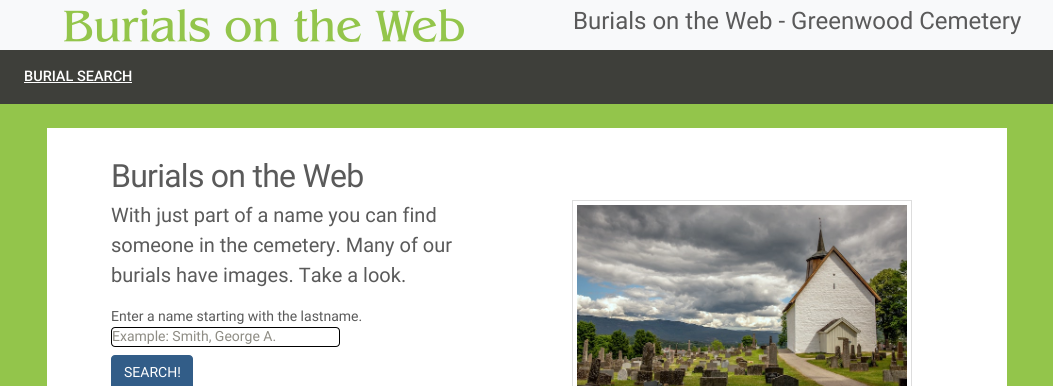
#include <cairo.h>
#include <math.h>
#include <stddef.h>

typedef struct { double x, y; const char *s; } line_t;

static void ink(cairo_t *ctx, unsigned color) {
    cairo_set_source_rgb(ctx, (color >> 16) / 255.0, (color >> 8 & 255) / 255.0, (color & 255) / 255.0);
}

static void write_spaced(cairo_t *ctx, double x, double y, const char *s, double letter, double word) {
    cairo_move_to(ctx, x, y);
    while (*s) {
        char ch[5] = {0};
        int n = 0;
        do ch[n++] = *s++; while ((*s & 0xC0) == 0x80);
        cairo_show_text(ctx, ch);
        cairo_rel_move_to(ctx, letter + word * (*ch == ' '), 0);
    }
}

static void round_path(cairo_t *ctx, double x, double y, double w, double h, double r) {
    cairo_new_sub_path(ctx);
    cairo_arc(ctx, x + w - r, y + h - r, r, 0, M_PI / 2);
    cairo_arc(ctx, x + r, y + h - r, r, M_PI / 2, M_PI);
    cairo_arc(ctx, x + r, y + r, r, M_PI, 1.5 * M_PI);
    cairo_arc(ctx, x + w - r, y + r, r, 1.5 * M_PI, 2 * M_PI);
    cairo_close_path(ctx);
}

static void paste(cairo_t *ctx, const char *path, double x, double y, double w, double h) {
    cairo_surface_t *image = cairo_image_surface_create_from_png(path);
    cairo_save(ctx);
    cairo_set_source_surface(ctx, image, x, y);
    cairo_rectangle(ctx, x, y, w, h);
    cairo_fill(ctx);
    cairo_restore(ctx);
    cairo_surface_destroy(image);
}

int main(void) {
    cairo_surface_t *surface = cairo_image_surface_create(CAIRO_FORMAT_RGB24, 1053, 386);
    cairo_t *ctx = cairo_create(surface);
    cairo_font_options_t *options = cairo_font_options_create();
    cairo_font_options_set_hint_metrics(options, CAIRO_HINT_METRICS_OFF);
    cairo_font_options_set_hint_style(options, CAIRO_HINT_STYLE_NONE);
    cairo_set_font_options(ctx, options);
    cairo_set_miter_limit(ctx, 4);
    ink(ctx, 0x93C54B);
    cairo_paint(ctx);
    ink(ctx, 0xF8F9FA);
    cairo_rectangle(ctx, 0, 0, 1053, 50);
    cairo_fill(ctx);
    paste(ctx, "media/1.png", 64, 9, 400, 33);
    cairo_select_font_face(ctx, "Roboto", CAIRO_FONT_SLANT_NORMAL, CAIRO_FONT_WEIGHT_NORMAL);
    cairo_set_font_size(ctx, 24);
    ink(ctx, 0x5A5A5A);
    cairo_move_to(ctx, 573, 29);
    cairo_show_text(ctx, "Burials on the Web - Greenwood Cemetery");
    ink(ctx, 0x3E3F3A);
    cairo_rectangle(ctx, 0, 50, 1053, 54);
    cairo_fill(ctx);
    cairo_select_font_face(ctx, "Roboto Medium", CAIRO_FONT_SLANT_NORMAL, CAIRO_FONT_WEIGHT_NORMAL);
    cairo_set_font_size(ctx, 14.5);
    ink(ctx, 0xFFFFFF);
    cairo_move_to(ctx, 24, 81);
    cairo_show_text(ctx, "BURIAL SEARCH");
    cairo_rectangle(ctx, 24, 82, 108, 1);
    cairo_fill(ctx);
    cairo_rectangle(ctx, 47, 128, 960, 258);
    cairo_fill(ctx);
    cairo_select_font_face(ctx, "Roboto", CAIRO_FONT_SLANT_NORMAL, CAIRO_FONT_WEIGHT_NORMAL);
    cairo_set_font_size(ctx, 32);
    ink(ctx, 0x5A5A5A);
    write_spaced(ctx, 111, 187, "Burials on the Web", -0.75, 0);
    cairo_set_font_size(ctx, 20);
    {
        static const line_t items[] = {
            {111, 222, "With just part of a name you can find"},
            {111, 252, "someone in the cemetery. Many of our"},
            {111, 282, "burials have images. Take a look."},
        };
        for (size_t i = 0; i < sizeof items / sizeof *items; i++) {
            cairo_move_to(ctx, items[i].x, items[i].y);
            cairo_show_text(ctx, items[i].s);
        }
    }
    cairo_set_font_size(ctx, 14);
    cairo_move_to(ctx, 111, 321);
    cairo_show_text(ctx, "Enter a name starting with the lastname.");
    round_path(ctx, 111.5, 327.5, 228, 19, 3.5);
    ink(ctx, 0x000000);
    cairo_set_line_width(ctx, 1);
    cairo_stroke(ctx);
    ink(ctx, 0x8E8C84);
    cairo_move_to(ctx, 112, 341);
    cairo_show_text(ctx, "Example: Smith, George A.");
    ink(ctx, 0x325D88);
    round_path(ctx, 111.5, 355.5, 81, 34, 3.5);
    cairo_fill_preserve(ctx);
    cairo_stroke(ctx);
    ink(ctx, 0xFFFFFF);
    cairo_move_to(ctx, 124, 377);
    cairo_show_text(ctx, "SEARCH!");
    cairo_rectangle(ctx, 572.5, 200.5, 339, 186);
    ink(ctx, 0xDDDDDD);
    cairo_stroke(ctx);
    paste(ctx, "media/2.png", 577, 205, 330, 181);
    cairo_surface_write_to_png(surface, "image.png");
    cairo_font_options_destroy(options);
    cairo_destroy(ctx);
    cairo_surface_destroy(surface);
    return 0;
}
